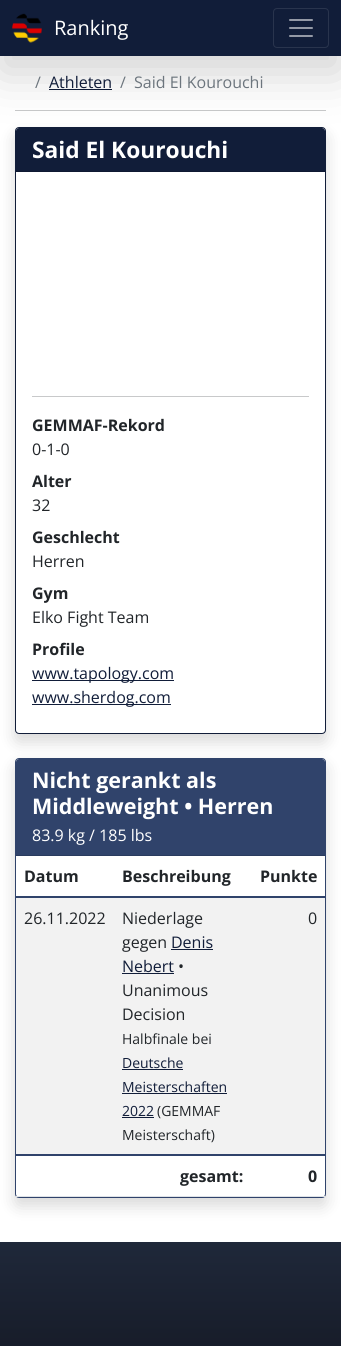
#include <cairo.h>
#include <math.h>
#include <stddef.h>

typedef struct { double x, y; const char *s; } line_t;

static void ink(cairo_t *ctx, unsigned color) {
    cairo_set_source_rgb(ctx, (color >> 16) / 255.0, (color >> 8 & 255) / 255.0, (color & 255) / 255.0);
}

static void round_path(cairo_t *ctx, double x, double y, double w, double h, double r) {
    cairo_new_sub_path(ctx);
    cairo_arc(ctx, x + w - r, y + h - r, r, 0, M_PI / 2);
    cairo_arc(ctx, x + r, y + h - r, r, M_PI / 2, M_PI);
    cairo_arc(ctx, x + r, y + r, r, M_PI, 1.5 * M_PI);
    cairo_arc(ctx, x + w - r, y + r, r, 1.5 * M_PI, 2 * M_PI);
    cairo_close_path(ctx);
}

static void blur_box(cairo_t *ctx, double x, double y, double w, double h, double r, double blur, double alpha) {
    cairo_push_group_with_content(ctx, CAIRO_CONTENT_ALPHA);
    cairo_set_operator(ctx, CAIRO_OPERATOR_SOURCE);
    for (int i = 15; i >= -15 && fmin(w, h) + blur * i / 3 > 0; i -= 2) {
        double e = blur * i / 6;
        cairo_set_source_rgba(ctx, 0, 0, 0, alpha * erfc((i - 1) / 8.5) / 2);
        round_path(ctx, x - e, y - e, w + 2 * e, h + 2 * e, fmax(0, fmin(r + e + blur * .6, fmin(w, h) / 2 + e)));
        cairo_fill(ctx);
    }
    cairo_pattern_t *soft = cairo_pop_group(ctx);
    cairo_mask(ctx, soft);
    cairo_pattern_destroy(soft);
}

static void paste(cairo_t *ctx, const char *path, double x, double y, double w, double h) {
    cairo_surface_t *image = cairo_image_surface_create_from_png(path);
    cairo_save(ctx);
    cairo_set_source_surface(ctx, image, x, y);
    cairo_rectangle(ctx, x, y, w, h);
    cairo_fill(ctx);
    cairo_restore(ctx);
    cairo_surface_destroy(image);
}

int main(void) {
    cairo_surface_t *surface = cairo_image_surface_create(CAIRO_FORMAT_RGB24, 341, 1346);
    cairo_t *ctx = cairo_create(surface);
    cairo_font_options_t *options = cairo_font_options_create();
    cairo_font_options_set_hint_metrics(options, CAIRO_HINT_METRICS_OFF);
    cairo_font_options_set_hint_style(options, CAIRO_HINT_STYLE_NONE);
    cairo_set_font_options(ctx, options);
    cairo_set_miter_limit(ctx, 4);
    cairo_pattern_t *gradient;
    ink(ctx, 0xFFFFFF);
    cairo_paint(ctx);
    ink(ctx, 0x111D39);
    cairo_rectangle(ctx, 49, 89, 63, 1);
    cairo_fill(ctx);
    ink(ctx, 0xC8C9CA);
    cairo_rectangle(ctx, 15, 110, 311, 1);
    cairo_fill(ctx);
    ink(ctx, 0x000000);
    blur_box(ctx, 15, 135, 311, 607, 4, 8, 0.15);
    ink(ctx, 0xFFFFFF);
    round_path(ctx, 15.5, 127.5, 310, 606, 3.5);
    cairo_fill_preserve(ctx);
    ink(ctx, 0x111D39);
    cairo_set_line_width(ctx, 1);
    cairo_stroke(ctx);
    cairo_new_path(ctx);
    cairo_move_to(ctx, 19, 128);
    cairo_line_to(ctx, 322, 128);
    cairo_curve_to(ctx, 323.5, 128, 325, 129.5, 325, 131);
    cairo_line_to(ctx, 325, 172);
    cairo_line_to(ctx, 16, 172);
    cairo_line_to(ctx, 16, 131);
    cairo_curve_to(ctx, 16, 129.5, 17.5, 128, 19, 128);
    cairo_close_path(ctx);
    cairo_fill(ctx);
    ink(ctx, 0x000000);
    blur_box(ctx, 0, 16, 341, 56, 0, 24, 0.18);
    ink(ctx, 0x111D39);
    cairo_rectangle(ctx, 0, 0, 341, 56);
    cairo_fill(ctx);
    paste(ctx, "media/1.png", 12, 13, 30, 30);
    cairo_select_font_face(ctx, "Open Sans", CAIRO_FONT_SLANT_NORMAL, CAIRO_FONT_WEIGHT_NORMAL);
    cairo_set_font_size(ctx, 20);
    ink(ctx, 0xFFFFFF);
    cairo_move_to(ctx, 54, 35);
    cairo_show_text(ctx, "Ranking");
    round_path(ctx, 273.5, 8.5, 55, 39, 3.5);
    ink(ctx, 0x29344D);
    cairo_stroke(ctx);
    paste(ctx, "media/2.png", 289, 19, 24, 18);
    cairo_set_font_size(ctx, 16);
    ink(ctx, 0x6C757D);
    cairo_move_to(ctx, 35, 88);
    cairo_show_text(ctx, "/");
    ink(ctx, 0x111D39);
    cairo_move_to(ctx, 49, 88);
    cairo_show_text(ctx, "Athleten");
    ink(ctx, 0x6C757D);
    cairo_move_to(ctx, 120, 88);
    cairo_show_text(ctx, "/");
    cairo_move_to(ctx, 134, 88);
    cairo_show_text(ctx, "Said El Kourouchi");
    ink(ctx, 0x0F1932);
    cairo_rectangle(ctx, 16, 171, 309, 1);
    cairo_fill(ctx);
    cairo_select_font_face(ctx, "Open Sans", CAIRO_FONT_SLANT_NORMAL, CAIRO_FONT_WEIGHT_BOLD);
    cairo_set_font_size(ctx, 22.75);
    ink(ctx, 0xFFFFFF);
    cairo_move_to(ctx, 32, 158);
    cairo_show_text(ctx, "Said El Kourouchi");
    ink(ctx, 0xC8C9CA);
    cairo_rectangle(ctx, 32, 396, 277, 1);
    cairo_fill(ctx);
    cairo_set_font_size(ctx, 16);
    ink(ctx, 0x212529);
    cairo_move_to(ctx, 32, 431);
    cairo_show_text(ctx, "GEMMAF-Rekord");
    cairo_select_font_face(ctx, "Open Sans", CAIRO_FONT_SLANT_NORMAL, CAIRO_FONT_WEIGHT_NORMAL);
    cairo_move_to(ctx, 32, 455);
    cairo_show_text(ctx, "0-1-0");
    cairo_select_font_face(ctx, "Open Sans", CAIRO_FONT_SLANT_NORMAL, CAIRO_FONT_WEIGHT_BOLD);
    cairo_move_to(ctx, 32, 487);
    cairo_show_text(ctx, "Alter");
    cairo_select_font_face(ctx, "Open Sans", CAIRO_FONT_SLANT_NORMAL, CAIRO_FONT_WEIGHT_NORMAL);
    cairo_move_to(ctx, 32, 511);
    cairo_show_text(ctx, "32");
    cairo_select_font_face(ctx, "Open Sans", CAIRO_FONT_SLANT_NORMAL, CAIRO_FONT_WEIGHT_BOLD);
    cairo_move_to(ctx, 32, 543);
    cairo_show_text(ctx, "Geschlecht");
    cairo_select_font_face(ctx, "Open Sans", CAIRO_FONT_SLANT_NORMAL, CAIRO_FONT_WEIGHT_NORMAL);
    cairo_move_to(ctx, 32, 567);
    cairo_show_text(ctx, "Herren");
    cairo_select_font_face(ctx, "Open Sans", CAIRO_FONT_SLANT_NORMAL, CAIRO_FONT_WEIGHT_BOLD);
    cairo_move_to(ctx, 32, 599);
    cairo_show_text(ctx, "Gym");
    cairo_select_font_face(ctx, "Open Sans", CAIRO_FONT_SLANT_NORMAL, CAIRO_FONT_WEIGHT_NORMAL);
    cairo_move_to(ctx, 32, 623);
    cairo_show_text(ctx, "Elko Fight Team");
    cairo_select_font_face(ctx, "Open Sans", CAIRO_FONT_SLANT_NORMAL, CAIRO_FONT_WEIGHT_BOLD);
    cairo_move_to(ctx, 32, 655);
    cairo_show_text(ctx, "Profile");
    ink(ctx, 0x111D39);
    cairo_rectangle(ctx, 32, 680, 142, 1);
    cairo_fill(ctx);
    cairo_select_font_face(ctx, "Open Sans", CAIRO_FONT_SLANT_NORMAL, CAIRO_FONT_WEIGHT_NORMAL);
    cairo_move_to(ctx, 32, 679);
    cairo_show_text(ctx, "www.tapology.com");
    cairo_rectangle(ctx, 32, 704, 139, 1);
    cairo_fill(ctx);
    cairo_move_to(ctx, 32, 703);
    cairo_show_text(ctx, "www.sherdog.com");
    ink(ctx, 0x000000);
    blur_box(ctx, 15, 766, 311, 440, 4, 8, 0.15);
    ink(ctx, 0xFFFFFF);
    round_path(ctx, 15.5, 758.5, 310, 439, 3.5);
    cairo_fill_preserve(ctx);
    ink(ctx, 0x30436B);
    cairo_stroke(ctx);
    cairo_new_path(ctx);
    cairo_move_to(ctx, 19, 759);
    cairo_line_to(ctx, 322, 759);
    cairo_curve_to(ctx, 323.5, 759, 325, 760.5, 325, 762);
    cairo_line_to(ctx, 325, 856);
    cairo_line_to(ctx, 16, 856);
    cairo_line_to(ctx, 16, 762);
    cairo_curve_to(ctx, 16, 760.5, 17.5, 759, 19, 759);
    cairo_close_path(ctx);
    cairo_fill(ctx);
    ink(ctx, 0x2A3B5E);
    cairo_rectangle(ctx, 16, 855, 309, 1);
    cairo_fill(ctx);
    cairo_select_font_face(ctx, "Open Sans", CAIRO_FONT_SLANT_NORMAL, CAIRO_FONT_WEIGHT_BOLD);
    cairo_set_font_size(ctx, 21.5);
    ink(ctx, 0xFFFFFF);
    cairo_move_to(ctx, 32, 788);
    cairo_show_text(ctx, "Nicht gerankt als");
    cairo_move_to(ctx, 32, 814);
    cairo_show_text(ctx, "Middleweight • Herren");
    cairo_select_font_face(ctx, "Open Sans", CAIRO_FONT_SLANT_NORMAL, CAIRO_FONT_WEIGHT_NORMAL);
    cairo_set_font_size(ctx, 16);
    cairo_move_to(ctx, 32, 841);
    cairo_show_text(ctx, "83.9 kg / 185 lbs");
    cairo_select_font_face(ctx, "Open Sans", CAIRO_FONT_SLANT_NORMAL, CAIRO_FONT_WEIGHT_BOLD);
    ink(ctx, 0x212529);
    {
        static const line_t items[] = {
            {24, 882, "Datum"},
            {122, 882, "Beschreibung"},
            {260, 882, "Punkte"},
        };
        for (size_t i = 0; i < sizeof items / sizeof *items; i++) {
            cairo_move_to(ctx, items[i].x, items[i].y);
            cairo_show_text(ctx, items[i].s);
        }
    }
    ink(ctx, 0x30436B);
    cairo_rectangle(ctx, 16, 896, 309, 2);
    cairo_fill(ctx);
    ink(ctx, 0xF2F2F2);
    cairo_rectangle(ctx, 16, 898, 309, 256);
    cairo_fill(ctx);
    cairo_select_font_face(ctx, "Open Sans", CAIRO_FONT_SLANT_NORMAL, CAIRO_FONT_WEIGHT_NORMAL);
    ink(ctx, 0x212529);
    {
        static const line_t items[] = {
            {24, 924, "26.11.2022"},
            {122, 924, "Niederlage"},
            {122, 948, "gegen"},
        };
        for (size_t i = 0; i < sizeof items / sizeof *items; i++) {
            cairo_move_to(ctx, items[i].x, items[i].y);
            cairo_show_text(ctx, items[i].s);
        }
    }
    ink(ctx, 0x111D39);
    cairo_move_to(ctx, 171, 948);
    cairo_show_text(ctx, "Denis");
    cairo_rectangle(ctx, 171, 949, 42, 1);
    cairo_fill(ctx);
    cairo_move_to(ctx, 122, 972);
    cairo_show_text(ctx, "Nebert");
    cairo_rectangle(ctx, 122, 973, 52, 1);
    cairo_fill(ctx);
    ink(ctx, 0x212529);
    {
        static const line_t items[] = {
            {178, 972, "•"},
            {122, 996, "Unanimous"},
            {122, 1020, "Decision"},
        };
        for (size_t i = 0; i < sizeof items / sizeof *items; i++) {
            cairo_move_to(ctx, items[i].x, items[i].y);
            cairo_show_text(ctx, items[i].s);
        }
    }
    cairo_set_font_size(ctx, 14);
    cairo_move_to(ctx, 122, 1044);
    cairo_show_text(ctx, "Halbfinale bei");
    ink(ctx, 0x111D39);
    cairo_move_to(ctx, 122, 1068);
    cairo_show_text(ctx, "Deutsche");
    cairo_rectangle(ctx, 122, 1069, 61, 1);
    cairo_fill(ctx);
    cairo_move_to(ctx, 122, 1092);
    cairo_show_text(ctx, "Meisterschaften");
    cairo_rectangle(ctx, 122, 1093, 105, 1);
    cairo_fill(ctx);
    cairo_move_to(ctx, 122, 1116);
    cairo_show_text(ctx, "2022");
    cairo_rectangle(ctx, 122, 1117, 32, 1);
    cairo_fill(ctx);
    ink(ctx, 0x212529);
    cairo_move_to(ctx, 157, 1116);
    cairo_show_text(ctx, "(GEMMAF");
    cairo_move_to(ctx, 122, 1140);
    cairo_show_text(ctx, "Meisterschaft)");
    cairo_set_font_size(ctx, 16);
    cairo_move_to(ctx, 308, 924);
    cairo_show_text(ctx, "0");
    ink(ctx, 0x30436B);
    cairo_rectangle(ctx, 16, 1154, 309, 2);
    cairo_fill(ctx);
    cairo_select_font_face(ctx, "Open Sans", CAIRO_FONT_SLANT_NORMAL, CAIRO_FONT_WEIGHT_BOLD);
    ink(ctx, 0x212529);
    cairo_move_to(ctx, 180, 1182);
    cairo_show_text(ctx, "gesamt:");
    ink(ctx, 0xDEE2E6);
    cairo_rectangle(ctx, 16, 1196, 309, 1);
    cairo_fill(ctx);
    ink(ctx, 0x212529);
    cairo_move_to(ctx, 308, 1182);
    cairo_show_text(ctx, "0");
    gradient = cairo_pattern_create_linear(171, 1242, 171, 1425);
    cairo_pattern_add_color_stop_rgba(gradient, 0, 0.122, 0.157, 0.227, 1);
    cairo_pattern_add_color_stop_rgba(gradient, 1, 0.067, 0.078, 0.114, 1);
    cairo_set_source(ctx, gradient);
    cairo_pattern_destroy(gradient);
    cairo_rectangle(ctx, 0, 1242, 341, 104);
    cairo_fill(ctx);
    cairo_surface_write_to_png(surface, "image.png");
    cairo_font_options_destroy(options);
    cairo_destroy(ctx);
    cairo_surface_destroy(surface);
    return 0;
}
